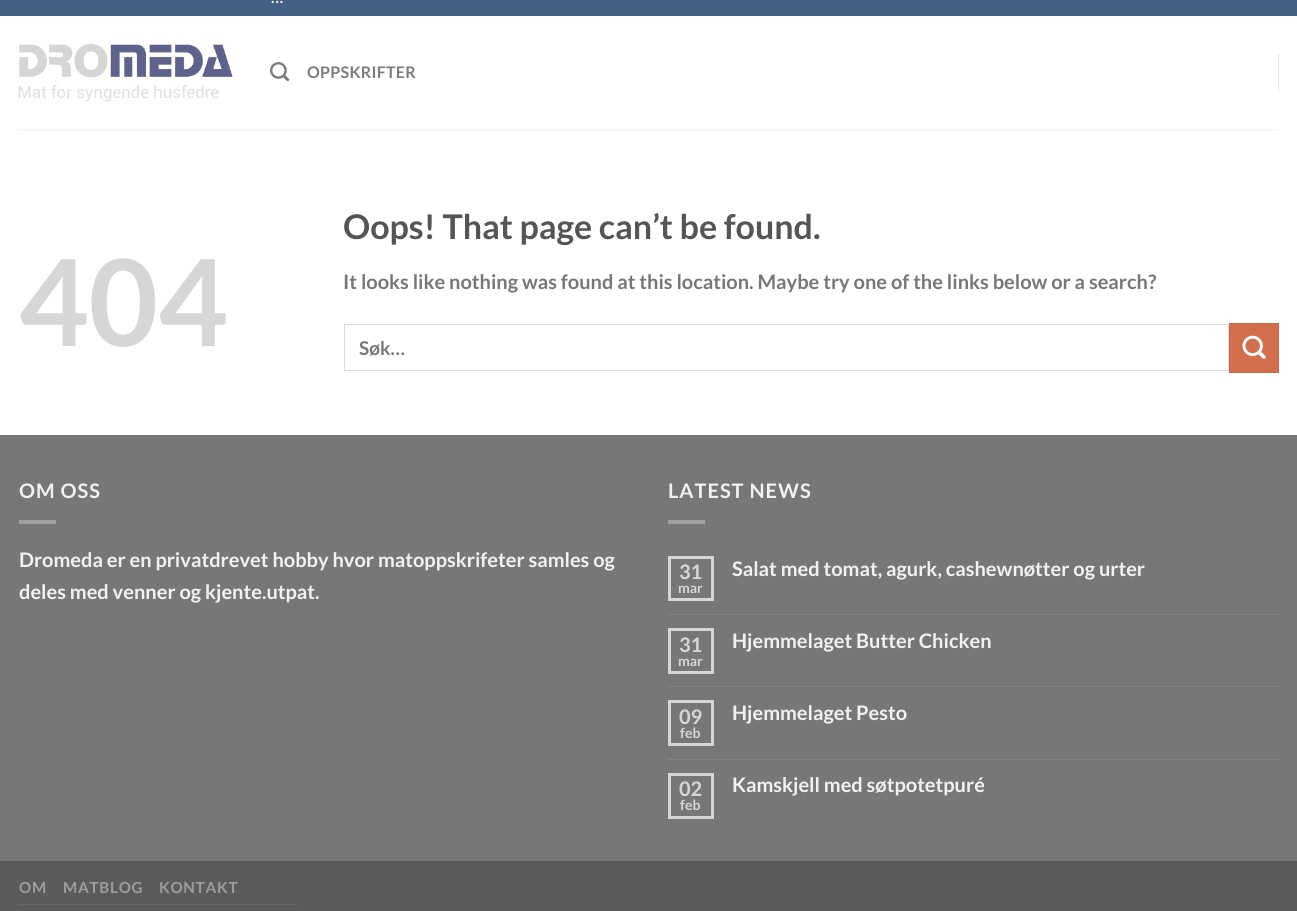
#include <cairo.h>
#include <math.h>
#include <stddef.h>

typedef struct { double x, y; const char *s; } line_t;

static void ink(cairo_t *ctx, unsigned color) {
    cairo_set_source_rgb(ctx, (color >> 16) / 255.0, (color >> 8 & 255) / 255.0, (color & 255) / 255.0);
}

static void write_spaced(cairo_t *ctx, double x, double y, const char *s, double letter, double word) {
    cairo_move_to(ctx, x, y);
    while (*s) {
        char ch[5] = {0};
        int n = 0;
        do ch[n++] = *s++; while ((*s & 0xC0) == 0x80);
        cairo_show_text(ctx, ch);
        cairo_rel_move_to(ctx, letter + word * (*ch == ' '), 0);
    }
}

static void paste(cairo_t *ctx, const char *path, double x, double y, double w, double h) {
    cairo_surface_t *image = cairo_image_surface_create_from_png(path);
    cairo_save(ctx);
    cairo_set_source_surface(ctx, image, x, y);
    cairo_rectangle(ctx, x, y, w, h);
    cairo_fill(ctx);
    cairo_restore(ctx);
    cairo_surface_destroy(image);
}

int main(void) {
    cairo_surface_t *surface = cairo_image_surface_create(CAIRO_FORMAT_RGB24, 1297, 911);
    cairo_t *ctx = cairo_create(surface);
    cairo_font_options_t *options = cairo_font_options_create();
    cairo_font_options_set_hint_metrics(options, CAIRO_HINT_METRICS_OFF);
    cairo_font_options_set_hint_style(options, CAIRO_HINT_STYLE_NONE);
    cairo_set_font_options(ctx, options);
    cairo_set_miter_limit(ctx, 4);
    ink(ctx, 0xFFFFFF);
    cairo_paint(ctx);
    ink(ctx, 0x446084);
    cairo_rectangle(ctx, 0, 0, 1297, 16);
    cairo_fill(ctx);
    cairo_select_font_face(ctx, "Lato", CAIRO_FONT_SLANT_NORMAL, CAIRO_FONT_WEIGHT_BOLD);
    cairo_set_font_size(ctx, 15);
    ink(ctx, 0xFFFFFF);
    write_spaced(ctx, 271, 3, "...", 1, 0);
    paste(ctx, "media/1.png", 18, 44, 215, 58);
    paste(ctx, "media/2.png", 270, 62, 20, 20);
    cairo_set_font_size(ctx, 16);
    ink(ctx, 0x7D7D7D);
    write_spaced(ctx, 307, 78, "OPPSKRIFTER", 0.25, 0);
    ink(ctx, 0xE6E6E6);
    cairo_rectangle(ctx, 1278, 54, 1, 37);
    cairo_fill(ctx);
    ink(ctx, 0xF1F1F1);
    cairo_rectangle(ctx, 19, 129, 1260, 1);
    cairo_fill(ctx);
    cairo_set_font_size(ctx, 120);
    ink(ctx, 0xD6D6D6);
    cairo_move_to(ctx, 19, 346);
    cairo_show_text(ctx, "404");
    cairo_set_font_size(ctx, 34);
    ink(ctx, 0x555555);
    cairo_move_to(ctx, 343, 239);
    cairo_show_text(ctx, "Oops! That page can’t be found.");
    cairo_set_font_size(ctx, 20);
    ink(ctx, 0x777777);
    cairo_move_to(ctx, 343, 289);
    cairo_show_text(ctx, "It looks like nothing was found at this location. Maybe try one of the links below or a search?");
    cairo_rectangle(ctx, 344.5, 324.5, 884, 46);
    ink(ctx, 0xDDDDDD);
    cairo_set_line_width(ctx, 1);
    cairo_stroke(ctx);
    cairo_set_font_size(ctx, 19);
    ink(ctx, 0x777777);
    cairo_move_to(ctx, 359, 355);
    cairo_show_text(ctx, "Søk…");
    ink(ctx, 0xD26E4B);
    cairo_rectangle(ctx, 1229.5, 323.5, 49, 49);
    cairo_fill_preserve(ctx);
    ink(ctx, 0xC86947);
    cairo_stroke(ctx);
    paste(ctx, "media/3.png", 1242, 335, 24, 24);
    ink(ctx, 0x777777);
    cairo_rectangle(ctx, 0, 436, 1297, 425);
    cairo_fill(ctx);
    ink(ctx, 0x717171);
    cairo_rectangle(ctx, 0, 435, 1297, 1);
    cairo_fill(ctx);
    cairo_set_font_size(ctx, 20);
    ink(ctx, 0xF1F1F1);
    write_spaced(ctx, 19, 498, "OM OSS", 1, 0);
    ink(ctx, 0xA0A0A0);
    cairo_rectangle(ctx, 19, 520, 37, 4);
    cairo_fill(ctx);
    ink(ctx, 0xF1F1F1);
    cairo_move_to(ctx, 19, 567);
    cairo_show_text(ctx, "Dromeda er en privatdrevet hobby hvor matoppskrifeter samles og");
    cairo_move_to(ctx, 19, 599);
    cairo_show_text(ctx, "deles med venner og kjente.utpat.");
    write_spaced(ctx, 668, 498, "LATEST NEWS", 1, 0);
    ink(ctx, 0xA0A0A0);
    cairo_rectangle(ctx, 668, 520, 37, 4);
    cairo_fill(ctx);
    cairo_rectangle(ctx, 669.5, 557.5, 43, 42);
    ink(ctx, 0xD6D6D6);
    cairo_set_line_width(ctx, 3);
    cairo_stroke(ctx);
    cairo_move_to(ctx, 679, 579);
    cairo_show_text(ctx, "31");
    cairo_set_font_size(ctx, 14);
    cairo_move_to(ctx, 678, 593);
    cairo_show_text(ctx, "mar");
    cairo_set_font_size(ctx, 20);
    ink(ctx, 0xF1F1F1);
    cairo_move_to(ctx, 732, 576);
    cairo_show_text(ctx, "Salat med tomat, agurk, cashewnøtter og urter");
    ink(ctx, 0x828282);
    cairo_rectangle(ctx, 668, 614, 611, 1);
    cairo_fill(ctx);
    cairo_rectangle(ctx, 669.5, 629.5, 43, 43);
    ink(ctx, 0xD6D6D6);
    cairo_stroke(ctx);
    cairo_move_to(ctx, 679, 652);
    cairo_show_text(ctx, "31");
    cairo_set_font_size(ctx, 14);
    cairo_move_to(ctx, 678, 666);
    cairo_show_text(ctx, "mar");
    cairo_set_font_size(ctx, 20);
    ink(ctx, 0xF1F1F1);
    cairo_move_to(ctx, 732, 648);
    cairo_show_text(ctx, "Hjemmelaget Butter Chicken");
    ink(ctx, 0x828282);
    cairo_rectangle(ctx, 668, 686, 611, 1);
    cairo_fill(ctx);
    cairo_rectangle(ctx, 669.5, 701.5, 43, 43);
    ink(ctx, 0xD6D6D6);
    cairo_stroke(ctx);
    cairo_move_to(ctx, 679, 724);
    cairo_show_text(ctx, "09");
    cairo_set_font_size(ctx, 14);
    cairo_move_to(ctx, 680, 738);
    cairo_show_text(ctx, "feb");
    cairo_set_font_size(ctx, 20);
    ink(ctx, 0xF1F1F1);
    cairo_move_to(ctx, 732, 720);
    cairo_show_text(ctx, "Hjemmelaget Pesto");
    ink(ctx, 0x828282);
    cairo_rectangle(ctx, 668, 759, 611, 1);
    cairo_fill(ctx);
    cairo_rectangle(ctx, 669.5, 774.5, 43, 43);
    ink(ctx, 0xD6D6D6);
    cairo_stroke(ctx);
    cairo_move_to(ctx, 679, 796);
    cairo_show_text(ctx, "02");
    cairo_set_font_size(ctx, 14);
    cairo_move_to(ctx, 680, 810);
    cairo_show_text(ctx, "feb");
    cairo_set_font_size(ctx, 20);
    ink(ctx, 0xF1F1F1);
    cairo_move_to(ctx, 732, 792);
    cairo_show_text(ctx, "Kamskjell med søtpotetpuré");
    ink(ctx, 0x5B5B5B);
    cairo_rectangle(ctx, 0, 861, 1297, 50);
    cairo_fill(ctx);
    ink(ctx, 0x656565);
    cairo_rectangle(ctx, 19, 904, 279, 1);
    cairo_fill(ctx);
    cairo_set_font_size(ctx, 15.25);
    ink(ctx, 0x9D9D9D);
    {
        static const line_t items[] = {
            {19, 893, "OM"},
            {63, 893, "MATBLOG"},
            {159, 893, "KONTAKT"},
        };
        for (size_t i = 0; i < sizeof items / sizeof *items; i++) {
            write_spaced(ctx, items[i].x, items[i].y, items[i].s, 0.75, 0);
        }
    }
    cairo_surface_write_to_png(surface, "image.png");
    cairo_font_options_destroy(options);
    cairo_destroy(ctx);
    cairo_surface_destroy(surface);
    return 0;
}
